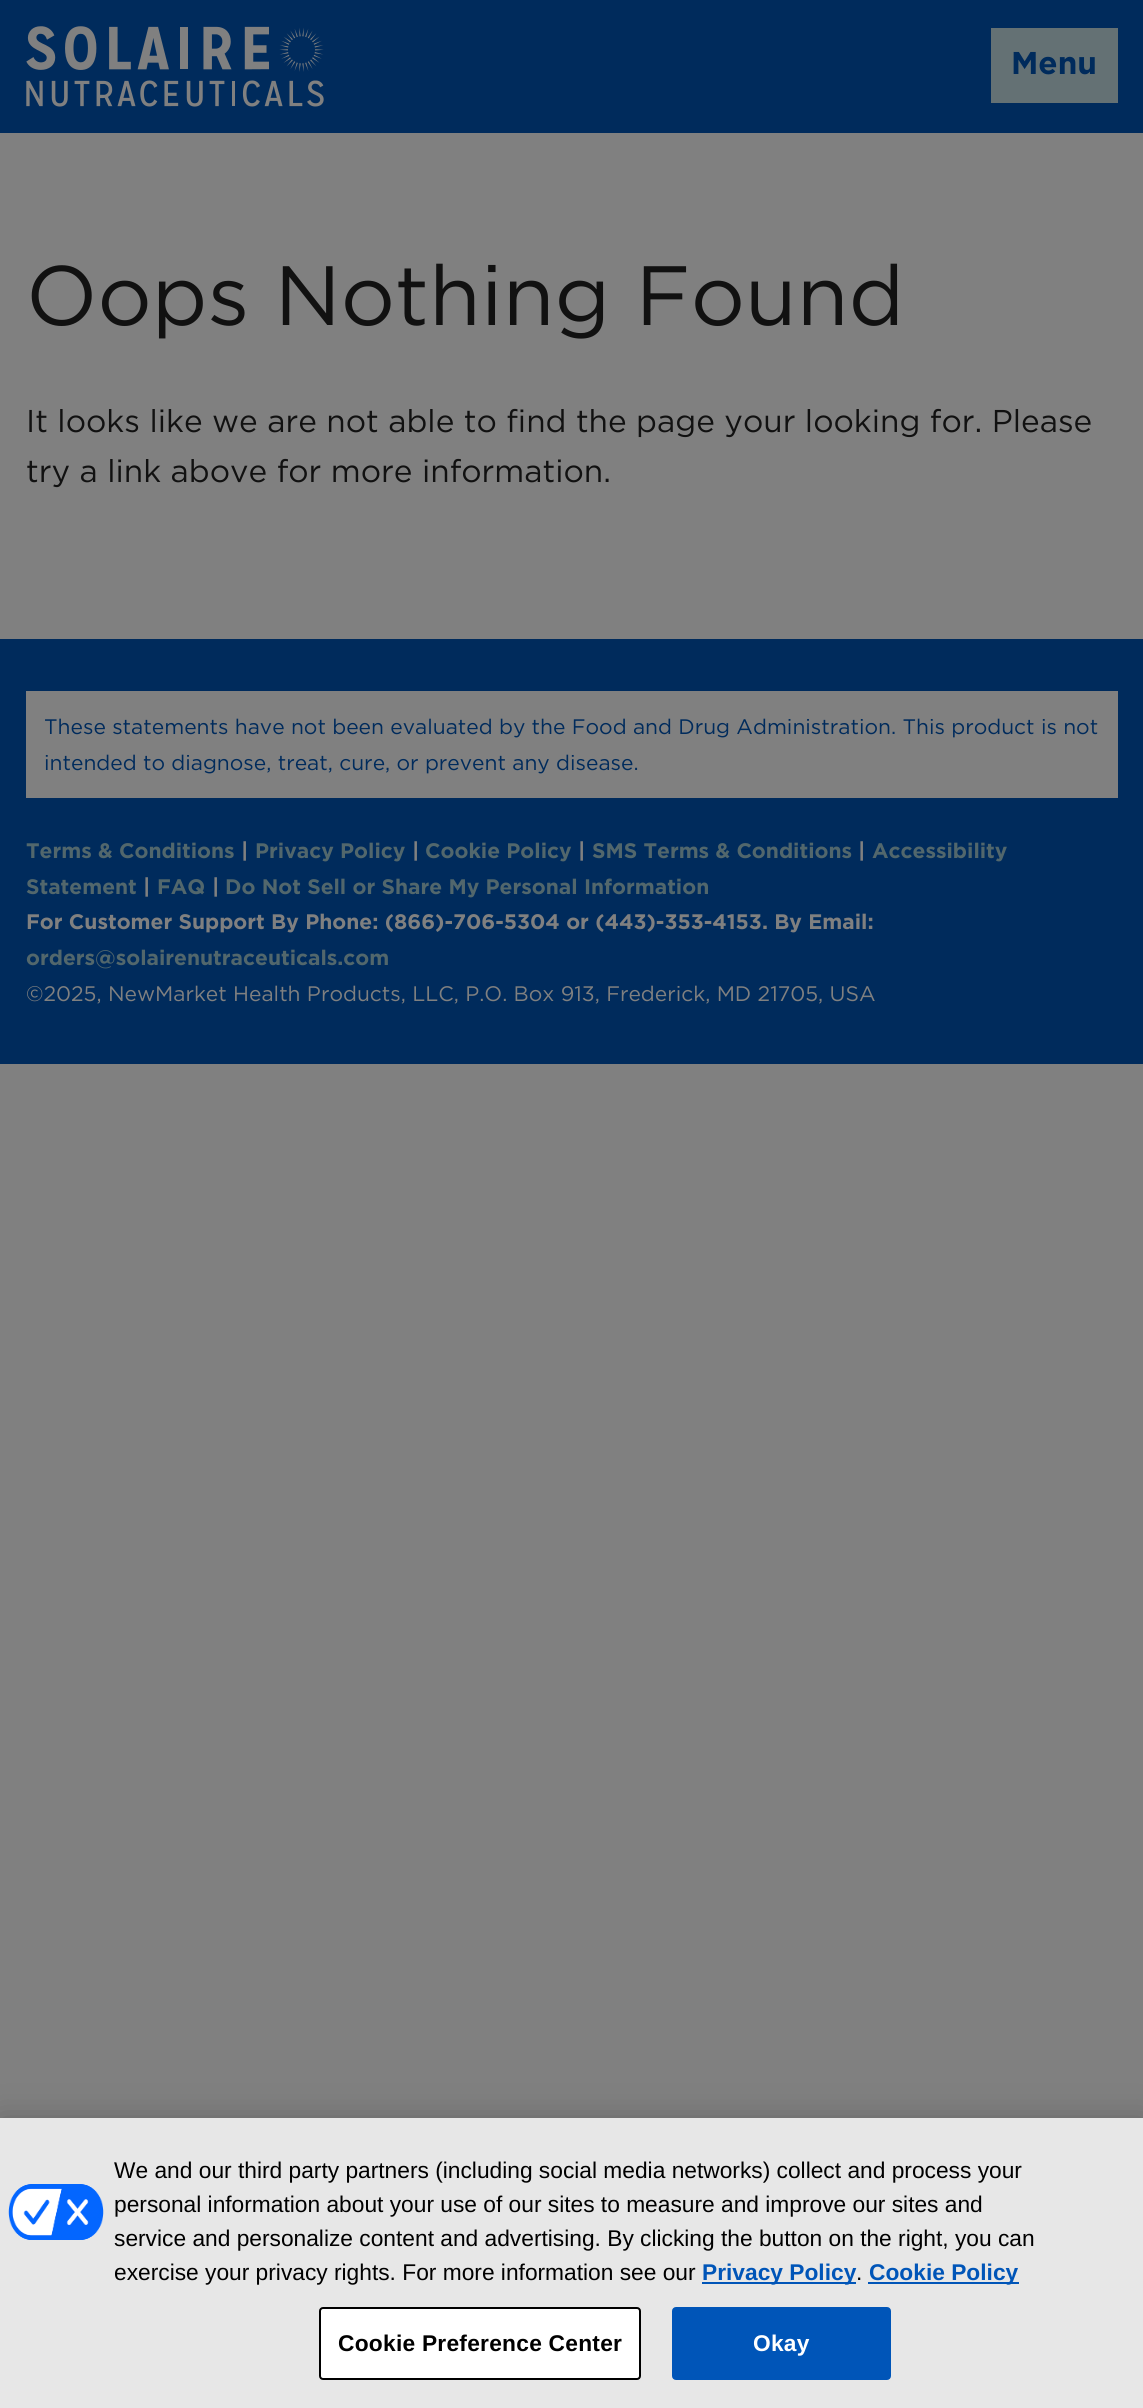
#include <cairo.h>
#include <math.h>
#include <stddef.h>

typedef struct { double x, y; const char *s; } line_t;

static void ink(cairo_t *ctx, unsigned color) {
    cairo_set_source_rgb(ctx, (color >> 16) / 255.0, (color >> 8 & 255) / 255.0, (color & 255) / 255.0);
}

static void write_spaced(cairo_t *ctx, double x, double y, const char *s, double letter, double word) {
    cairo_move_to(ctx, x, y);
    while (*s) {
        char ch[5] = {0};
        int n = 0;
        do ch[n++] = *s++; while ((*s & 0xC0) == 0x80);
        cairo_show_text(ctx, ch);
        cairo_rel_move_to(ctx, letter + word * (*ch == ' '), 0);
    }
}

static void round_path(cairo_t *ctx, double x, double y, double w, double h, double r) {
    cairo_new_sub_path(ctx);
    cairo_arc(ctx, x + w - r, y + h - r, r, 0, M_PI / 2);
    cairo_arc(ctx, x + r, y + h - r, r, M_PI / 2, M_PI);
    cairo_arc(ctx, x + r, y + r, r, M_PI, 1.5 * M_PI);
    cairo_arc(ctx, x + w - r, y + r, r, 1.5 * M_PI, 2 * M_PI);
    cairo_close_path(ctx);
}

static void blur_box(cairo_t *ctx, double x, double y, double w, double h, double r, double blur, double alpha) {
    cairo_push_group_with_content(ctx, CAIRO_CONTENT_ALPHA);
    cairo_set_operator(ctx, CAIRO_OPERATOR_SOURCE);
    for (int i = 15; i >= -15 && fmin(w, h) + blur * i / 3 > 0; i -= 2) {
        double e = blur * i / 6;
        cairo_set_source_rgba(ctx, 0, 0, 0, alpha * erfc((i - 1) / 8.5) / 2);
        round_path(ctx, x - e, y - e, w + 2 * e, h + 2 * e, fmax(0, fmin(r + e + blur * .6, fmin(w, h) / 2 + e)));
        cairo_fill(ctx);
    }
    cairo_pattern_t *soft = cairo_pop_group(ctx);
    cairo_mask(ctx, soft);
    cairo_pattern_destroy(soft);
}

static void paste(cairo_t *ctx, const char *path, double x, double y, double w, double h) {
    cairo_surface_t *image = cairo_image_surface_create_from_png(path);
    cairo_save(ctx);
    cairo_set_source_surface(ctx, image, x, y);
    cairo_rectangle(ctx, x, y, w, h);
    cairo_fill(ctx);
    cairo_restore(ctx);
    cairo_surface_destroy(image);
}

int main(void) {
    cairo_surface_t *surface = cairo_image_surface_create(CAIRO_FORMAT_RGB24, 1143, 2408);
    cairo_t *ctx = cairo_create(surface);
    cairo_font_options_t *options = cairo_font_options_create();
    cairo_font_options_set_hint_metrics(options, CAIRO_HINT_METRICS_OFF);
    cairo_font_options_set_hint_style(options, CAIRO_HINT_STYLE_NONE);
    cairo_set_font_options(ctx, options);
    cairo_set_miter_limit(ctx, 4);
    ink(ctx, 0x808080);
    cairo_paint(ctx);
    ink(ctx, 0x002B5C);
    cairo_rectangle(ctx, 0, 0, 1143, 133);
    cairo_fill(ctx);
    paste(ctx, "media/1.png", 26, 26, 298, 81);
    ink(ctx, 0x647174);
    cairo_rectangle(ctx, 991, 28, 127, 75);
    cairo_fill(ctx);
    cairo_select_font_face(ctx, "Gotham", CAIRO_FONT_SLANT_NORMAL, CAIRO_FONT_WEIGHT_BOLD);
    cairo_set_font_size(ctx, 31.5);
    ink(ctx, 0x002B5C);
    cairo_move_to(ctx, 1011, 74);
    cairo_show_text(ctx, "Menu");
    cairo_select_font_face(ctx, "Gotham", CAIRO_FONT_SLANT_NORMAL, CAIRO_FONT_WEIGHT_NORMAL);
    cairo_set_font_size(ctx, 84);
    ink(ctx, 0x111111);
    cairo_move_to(ctx, 26, 325);
    cairo_show_text(ctx, "Oops Nothing Found");
    cairo_set_font_size(ctx, 31.5);
    cairo_move_to(ctx, 26, 432);
    cairo_show_text(ctx, "It looks like we are not able to find the page your looking for. Please");
    cairo_move_to(ctx, 26, 482);
    cairo_show_text(ctx, "try a link above for more information.");
    ink(ctx, 0x002B5C);
    cairo_rectangle(ctx, 0, 639, 1143, 425);
    cairo_fill(ctx);
    ink(ctx, 0x808080);
    cairo_rectangle(ctx, 26, 691, 1092, 107);
    cairo_fill(ctx);
    cairo_set_font_size(ctx, 21);
    ink(ctx, 0x002B5C);
    cairo_move_to(ctx, 44, 734);
    cairo_show_text(ctx, "These statements have not been evaluated by the Food and Drug Administration. This product is not");
    cairo_move_to(ctx, 44, 770);
    cairo_show_text(ctx, "intended to diagnose, treat, cure, or prevent any disease.");
    cairo_select_font_face(ctx, "Gotham", CAIRO_FONT_SLANT_NORMAL, CAIRO_FONT_WEIGHT_BOLD);
    ink(ctx, 0x52676C);
    cairo_move_to(ctx, 26, 858);
    cairo_show_text(ctx, "Terms & Conditions");
    ink(ctx, 0x808080);
    cairo_move_to(ctx, 241, 858);
    cairo_show_text(ctx, "|");
    ink(ctx, 0x52676C);
    cairo_move_to(ctx, 255, 858);
    cairo_show_text(ctx, "Privacy Policy");
    ink(ctx, 0x808080);
    cairo_move_to(ctx, 412, 858);
    cairo_show_text(ctx, "|");
    ink(ctx, 0x52676C);
    cairo_move_to(ctx, 425, 858);
    cairo_show_text(ctx, "Cookie Policy");
    ink(ctx, 0x808080);
    cairo_move_to(ctx, 578, 858);
    cairo_show_text(ctx, "|");
    ink(ctx, 0x52676C);
    cairo_move_to(ctx, 592, 858);
    cairo_show_text(ctx, "SMS Terms & Conditions");
    ink(ctx, 0x808080);
    cairo_move_to(ctx, 858, 858);
    cairo_show_text(ctx, "|");
    ink(ctx, 0x52676C);
    cairo_move_to(ctx, 872, 858);
    cairo_show_text(ctx, "Accessibility");
    cairo_move_to(ctx, 26, 894);
    cairo_show_text(ctx, "Statement");
    ink(ctx, 0x808080);
    cairo_move_to(ctx, 143, 894);
    cairo_show_text(ctx, "|");
    ink(ctx, 0x52676C);
    cairo_move_to(ctx, 157, 894);
    cairo_show_text(ctx, "FAQ");
    ink(ctx, 0x808080);
    cairo_move_to(ctx, 212, 894);
    cairo_show_text(ctx, "|");
    ink(ctx, 0x52676C);
    cairo_move_to(ctx, 225, 894);
    cairo_show_text(ctx, "Do Not Sell or Share My Personal Information");
    ink(ctx, 0x808080);
    cairo_move_to(ctx, 26, 929);
    cairo_show_text(ctx, "For Customer Support By Phone: (866)-706-5304 or (443)-353-4153. By Email:");
    ink(ctx, 0x52676C);
    cairo_move_to(ctx, 26, 965);
    cairo_show_text(ctx, "orders@solairenutraceuticals.com");
    cairo_select_font_face(ctx, "Gotham", CAIRO_FONT_SLANT_NORMAL, CAIRO_FONT_WEIGHT_NORMAL);
    ink(ctx, 0x808080);
    cairo_move_to(ctx, 26, 1001);
    cairo_show_text(ctx, "©2025, NewMarket Health Products, LLC, P.O. Box 913, Frederick, MD 21705, USA");
    ink(ctx, 0x000000);
    blur_box(ctx, 0, 2118, 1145, 290, 0, 16, 0.2);
    ink(ctx, 0xE7E7E7);
    cairo_rectangle(ctx, 0, 2118, 1143, 290);
    cairo_fill(ctx);
    paste(ctx, "media/2.png", 8, 2184, 96, 56);
    cairo_select_font_face(ctx, "Liberation Sans", CAIRO_FONT_SLANT_NORMAL, CAIRO_FONT_WEIGHT_NORMAL);
    cairo_set_font_size(ctx, 22.75);
    ink(ctx, 0x000000);
    {
        static const line_t items[] = {
            {114, 2178, "We and our third party partners (including social media networks) collect and process your"},
            {114, 2212, "personal information about your use of our sites to measure and improve our sites and"},
            {114, 2246, "service and personalize content and advertising. By clicking the button on the right, you can"},
            {114, 2280, "exercise your privacy rights. For more information see our"},
        };
        for (size_t i = 0; i < sizeof items / sizeof *items; i++) {
            cairo_move_to(ctx, items[i].x, items[i].y);
            cairo_show_text(ctx, items[i].s);
        }
    }
    ink(ctx, 0x0055B8);
    cairo_rectangle(ctx, 702, 2282, 154, 2);
    cairo_fill(ctx);
    cairo_select_font_face(ctx, "Liberation Sans", CAIRO_FONT_SLANT_NORMAL, CAIRO_FONT_WEIGHT_BOLD);
    cairo_move_to(ctx, 702, 2280);
    cairo_show_text(ctx, "Privacy Policy");
    cairo_select_font_face(ctx, "Liberation Sans", CAIRO_FONT_SLANT_NORMAL, CAIRO_FONT_WEIGHT_NORMAL);
    ink(ctx, 0x000000);
    cairo_move_to(ctx, 856, 2280);
    cairo_show_text(ctx, ".");
    ink(ctx, 0x0055B8);
    cairo_rectangle(ctx, 868, 2282, 151, 2);
    cairo_fill(ctx);
    cairo_select_font_face(ctx, "Liberation Sans", CAIRO_FONT_SLANT_NORMAL, CAIRO_FONT_WEIGHT_BOLD);
    cairo_move_to(ctx, 869, 2280);
    cairo_show_text(ctx, "Cookie Policy");
    ink(ctx, 0xFFFFFF);
    round_path(ctx, 320, 2308, 320, 71, 3);
    cairo_fill_preserve(ctx);
    ink(ctx, 0x000000);
    cairo_stroke(ctx);
    write_spaced(ctx, 338, 2351, "Cookie Preference Center", 0.25, 0);
    ink(ctx, 0x0055B8);
    round_path(ctx, 673, 2308, 217, 71, 3);
    cairo_fill_preserve(ctx);
    cairo_stroke(ctx);
    ink(ctx, 0xFFFFFF);
    write_spaced(ctx, 753, 2351, "Okay", 0.25, 0);
    cairo_surface_write_to_png(surface, "image.png");
    cairo_font_options_destroy(options);
    cairo_destroy(ctx);
    cairo_surface_destroy(surface);
    return 0;
}
